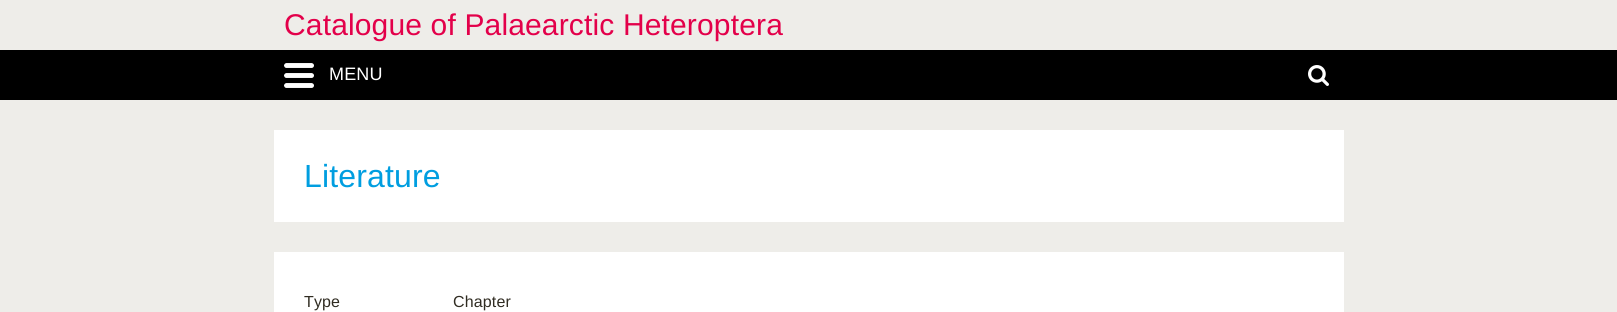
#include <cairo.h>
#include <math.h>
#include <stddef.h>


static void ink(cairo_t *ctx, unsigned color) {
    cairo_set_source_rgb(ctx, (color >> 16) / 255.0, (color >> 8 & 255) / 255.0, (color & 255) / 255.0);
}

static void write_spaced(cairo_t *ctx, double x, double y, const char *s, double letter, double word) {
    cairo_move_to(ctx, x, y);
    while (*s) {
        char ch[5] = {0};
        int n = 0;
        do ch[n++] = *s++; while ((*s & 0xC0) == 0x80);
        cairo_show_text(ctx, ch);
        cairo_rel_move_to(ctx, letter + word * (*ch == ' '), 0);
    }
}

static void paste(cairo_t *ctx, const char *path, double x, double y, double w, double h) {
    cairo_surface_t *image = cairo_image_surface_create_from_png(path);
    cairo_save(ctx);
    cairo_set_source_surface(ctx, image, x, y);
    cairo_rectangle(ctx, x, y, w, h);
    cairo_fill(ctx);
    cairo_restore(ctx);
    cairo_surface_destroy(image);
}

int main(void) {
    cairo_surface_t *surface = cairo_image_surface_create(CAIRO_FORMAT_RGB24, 1617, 312);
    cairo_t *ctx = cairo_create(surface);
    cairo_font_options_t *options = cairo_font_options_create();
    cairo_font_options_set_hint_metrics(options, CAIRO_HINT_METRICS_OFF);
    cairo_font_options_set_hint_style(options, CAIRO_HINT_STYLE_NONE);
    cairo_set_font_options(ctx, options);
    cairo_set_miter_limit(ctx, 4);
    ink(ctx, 0xEEEDE9);
    cairo_paint(ctx);
    cairo_select_font_face(ctx, "Liberation Sans", CAIRO_FONT_SLANT_NORMAL, CAIRO_FONT_WEIGHT_NORMAL);
    cairo_set_font_size(ctx, 30);
    ink(ctx, 0xE3004A);
    write_spaced(ctx, 284, 35, "Catalogue of Palaearctic Heteroptera", 0.15, 0);
    ink(ctx, 0x000000);
    cairo_rectangle(ctx, 0, 50, 1617, 50);
    cairo_fill(ctx);
    paste(ctx, "media/1.png", 284, 63, 30, 25);
    cairo_set_font_size(ctx, 18);
    ink(ctx, 0xFFFFFF);
    write_spaced(ctx, 329, 80, "MENU", 0.15, 0);
    paste(ctx, "media/2.png", 1308, 65, 21, 21);
    cairo_rectangle(ctx, 274, 130, 1070, 92);
    cairo_fill(ctx);
    cairo_set_font_size(ctx, 32);
    ink(ctx, 0x009EE0);
    write_spaced(ctx, 304, 187, "Literature", 0.15, 0);
    ink(ctx, 0xFFFFFF);
    cairo_rectangle(ctx, 274, 252, 1070, 60);
    cairo_fill(ctx);
    cairo_set_font_size(ctx, 16);
    ink(ctx, 0x302C22);
    write_spaced(ctx, 304, 307, "Type", 0.15, 0);
    write_spaced(ctx, 453, 307, "Chapter", 0.15, 0);
    cairo_surface_write_to_png(surface, "image.png");
    cairo_font_options_destroy(options);
    cairo_destroy(ctx);
    cairo_surface_destroy(surface);
    return 0;
}
